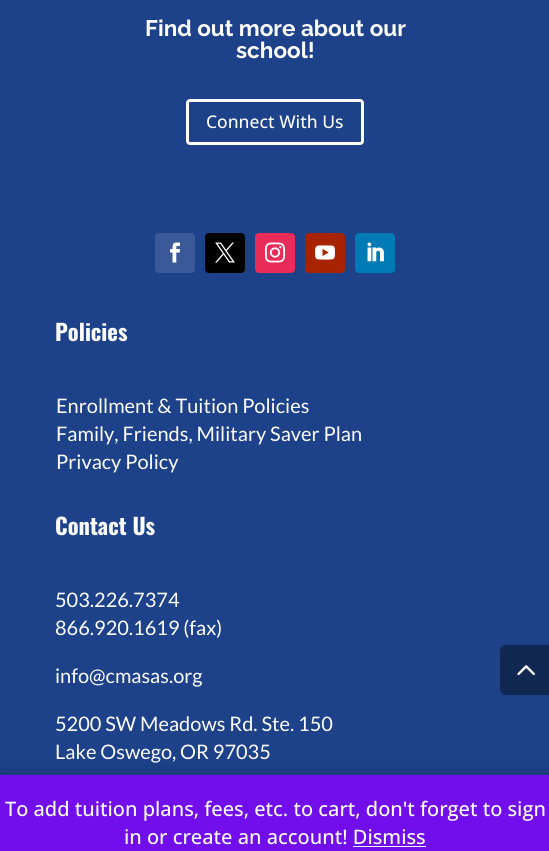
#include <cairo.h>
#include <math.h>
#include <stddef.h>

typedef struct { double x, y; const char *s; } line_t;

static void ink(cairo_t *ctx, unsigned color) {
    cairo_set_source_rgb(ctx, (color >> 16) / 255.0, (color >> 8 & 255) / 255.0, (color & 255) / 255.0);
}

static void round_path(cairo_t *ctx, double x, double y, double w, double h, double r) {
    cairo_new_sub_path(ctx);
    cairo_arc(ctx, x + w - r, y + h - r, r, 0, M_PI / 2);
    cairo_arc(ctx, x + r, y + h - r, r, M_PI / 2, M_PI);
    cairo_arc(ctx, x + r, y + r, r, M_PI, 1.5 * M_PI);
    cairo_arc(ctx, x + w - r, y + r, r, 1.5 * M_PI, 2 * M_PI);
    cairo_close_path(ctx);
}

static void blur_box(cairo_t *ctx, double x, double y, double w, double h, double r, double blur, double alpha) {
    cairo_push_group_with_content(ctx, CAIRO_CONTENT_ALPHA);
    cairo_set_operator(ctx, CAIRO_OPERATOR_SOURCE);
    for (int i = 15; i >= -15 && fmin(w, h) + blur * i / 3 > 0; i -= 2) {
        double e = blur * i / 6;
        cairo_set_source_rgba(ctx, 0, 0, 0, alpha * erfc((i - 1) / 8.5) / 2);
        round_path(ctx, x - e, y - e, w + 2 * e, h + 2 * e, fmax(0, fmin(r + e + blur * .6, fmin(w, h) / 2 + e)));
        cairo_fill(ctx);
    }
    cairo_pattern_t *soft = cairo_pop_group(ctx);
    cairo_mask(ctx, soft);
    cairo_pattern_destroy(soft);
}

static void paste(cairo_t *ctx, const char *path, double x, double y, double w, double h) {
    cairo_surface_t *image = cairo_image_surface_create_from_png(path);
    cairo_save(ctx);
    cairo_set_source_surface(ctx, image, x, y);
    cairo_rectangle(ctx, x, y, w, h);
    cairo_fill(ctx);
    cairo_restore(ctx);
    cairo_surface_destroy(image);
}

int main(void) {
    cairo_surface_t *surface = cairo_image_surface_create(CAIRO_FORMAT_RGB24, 549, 851);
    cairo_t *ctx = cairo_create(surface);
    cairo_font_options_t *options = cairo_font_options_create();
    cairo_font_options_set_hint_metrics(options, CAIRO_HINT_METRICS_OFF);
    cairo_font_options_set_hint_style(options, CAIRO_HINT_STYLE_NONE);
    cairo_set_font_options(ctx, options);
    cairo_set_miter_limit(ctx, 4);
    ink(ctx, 0x1D428A);
    cairo_paint(ctx);
    cairo_select_font_face(ctx, "Raleway Thin", CAIRO_FONT_SLANT_NORMAL, CAIRO_FONT_WEIGHT_NORMAL);
    cairo_set_font_size(ctx, 22.5);
    ink(ctx, 0xFFFFFF);
    cairo_move_to(ctx, 145, 36);
    cairo_show_text(ctx, "Find out more about our");
    cairo_move_to(ctx, 236, 58);
    cairo_show_text(ctx, "school!");
    round_path(ctx, 187.5, 100.5, 175, 43, 2.5);
    cairo_set_line_width(ctx, 3);
    cairo_stroke(ctx);
    cairo_select_font_face(ctx, "Open Sans Medium", CAIRO_FONT_SLANT_NORMAL, CAIRO_FONT_WEIGHT_NORMAL);
    cairo_set_font_size(ctx, 17.5);
    cairo_move_to(ctx, 206, 128);
    cairo_show_text(ctx, "Connect With Us");
    ink(ctx, 0x3B5998);
    round_path(ctx, 155, 233, 40, 40, 4);
    cairo_fill(ctx);
    paste(ctx, "media/1.png", 170, 242, 10, 21);
    ink(ctx, 0x000000);
    round_path(ctx, 205, 233, 40, 40, 4);
    cairo_fill(ctx);
    paste(ctx, "media/2.png", 215, 242, 20, 21);
    ink(ctx, 0xEA2C59);
    round_path(ctx, 255, 233, 40, 40, 4);
    cairo_fill(ctx);
    paste(ctx, "media/3.png", 265, 242, 20, 21);
    ink(ctx, 0xA82400);
    round_path(ctx, 305, 233, 40, 40, 4);
    cairo_fill(ctx);
    paste(ctx, "media/4.png", 315, 245, 20, 15);
    ink(ctx, 0x007BB6);
    round_path(ctx, 355, 233, 40, 40, 4);
    cairo_fill(ctx);
    paste(ctx, "media/5.png", 367, 242, 17, 20);
    cairo_select_font_face(ctx, "Oswald", CAIRO_FONT_SLANT_NORMAL, CAIRO_FONT_WEIGHT_BOLD);
    cairo_set_font_size(ctx, 22.5);
    ink(ctx, 0xFFFFFF);
    cairo_move_to(ctx, 55, 341);
    cairo_show_text(ctx, "Policies");
    cairo_select_font_face(ctx, "Lato", CAIRO_FONT_SLANT_NORMAL, CAIRO_FONT_WEIGHT_NORMAL);
    cairo_set_font_size(ctx, 20);
    {
        static const line_t items[] = {
            {56, 413, "Enrollment & Tuition Policies"},
            {56, 441, "Family, Friends, Military Saver Plan"},
            {56, 469, "Privacy Policy"},
        };
        for (size_t i = 0; i < sizeof items / sizeof *items; i++) {
            cairo_move_to(ctx, items[i].x, items[i].y);
            cairo_show_text(ctx, items[i].s);
        }
    }
    cairo_select_font_face(ctx, "Oswald", CAIRO_FONT_SLANT_NORMAL, CAIRO_FONT_WEIGHT_BOLD);
    cairo_set_font_size(ctx, 22.5);
    cairo_move_to(ctx, 55, 535);
    cairo_show_text(ctx, "Contact Us");
    cairo_select_font_face(ctx, "Lato", CAIRO_FONT_SLANT_NORMAL, CAIRO_FONT_WEIGHT_NORMAL);
    cairo_set_font_size(ctx, 20);
    {
        static const line_t items[] = {
            {55, 607, "503.226.7374"},
            {55, 635, "866.920.1619 (fax)"},
            {55, 683, "info@cmasas.org"},
            {55, 731, "5200 SW Meadows Rd. Ste. 150"},
            {55, 759, "Lake Oswego, OR 97035"},
        };
        for (size_t i = 0; i < sizeof items / sizeof *items; i++) {
            cairo_move_to(ctx, items[i].x, items[i].y);
            cairo_show_text(ctx, items[i].s);
        }
    }
    ink(ctx, 0x112853);
    cairo_new_path(ctx);
    cairo_move_to(ctx, 506, 645);
    cairo_line_to(ctx, 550, 645);
    cairo_line_to(ctx, 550, 695);
    cairo_line_to(ctx, 506, 695);
    cairo_curve_to(ctx, 502.5, 695, 500, 692.5, 500, 689);
    cairo_line_to(ctx, 500, 651);
    cairo_curve_to(ctx, 500, 647.5, 502.5, 645, 506, 645);
    cairo_close_path(ctx);
    cairo_fill(ctx);
    paste(ctx, "media/6.png", 517, 665, 18, 11);
    ink(ctx, 0x000000);
    blur_box(ctx, 0, 776, 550, 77, 0, 10, 0.2);
    ink(ctx, 0x720EEC);
    cairo_rectangle(ctx, 0, 775, 549, 76);
    cairo_fill(ctx);
    cairo_select_font_face(ctx, "Open Sans Medium", CAIRO_FONT_SLANT_NORMAL, CAIRO_FONT_WEIGHT_NORMAL);
    ink(ctx, 0xFFFFFF);
    cairo_move_to(ctx, 5, 816);
    cairo_show_text(ctx, "To add tuition plans, fees, etc. to cart, don't forget to sign");
    cairo_move_to(ctx, 124, 844);
    cairo_show_text(ctx, "in or create an account! Dismiss");
    ink(ctx, 0xFCFBFE);
    cairo_rectangle(ctx, 353, 846, 73, 1);
    cairo_fill(ctx);
    cairo_surface_write_to_png(surface, "image.png");
    cairo_font_options_destroy(options);
    cairo_destroy(ctx);
    cairo_surface_destroy(surface);
    return 0;
}
